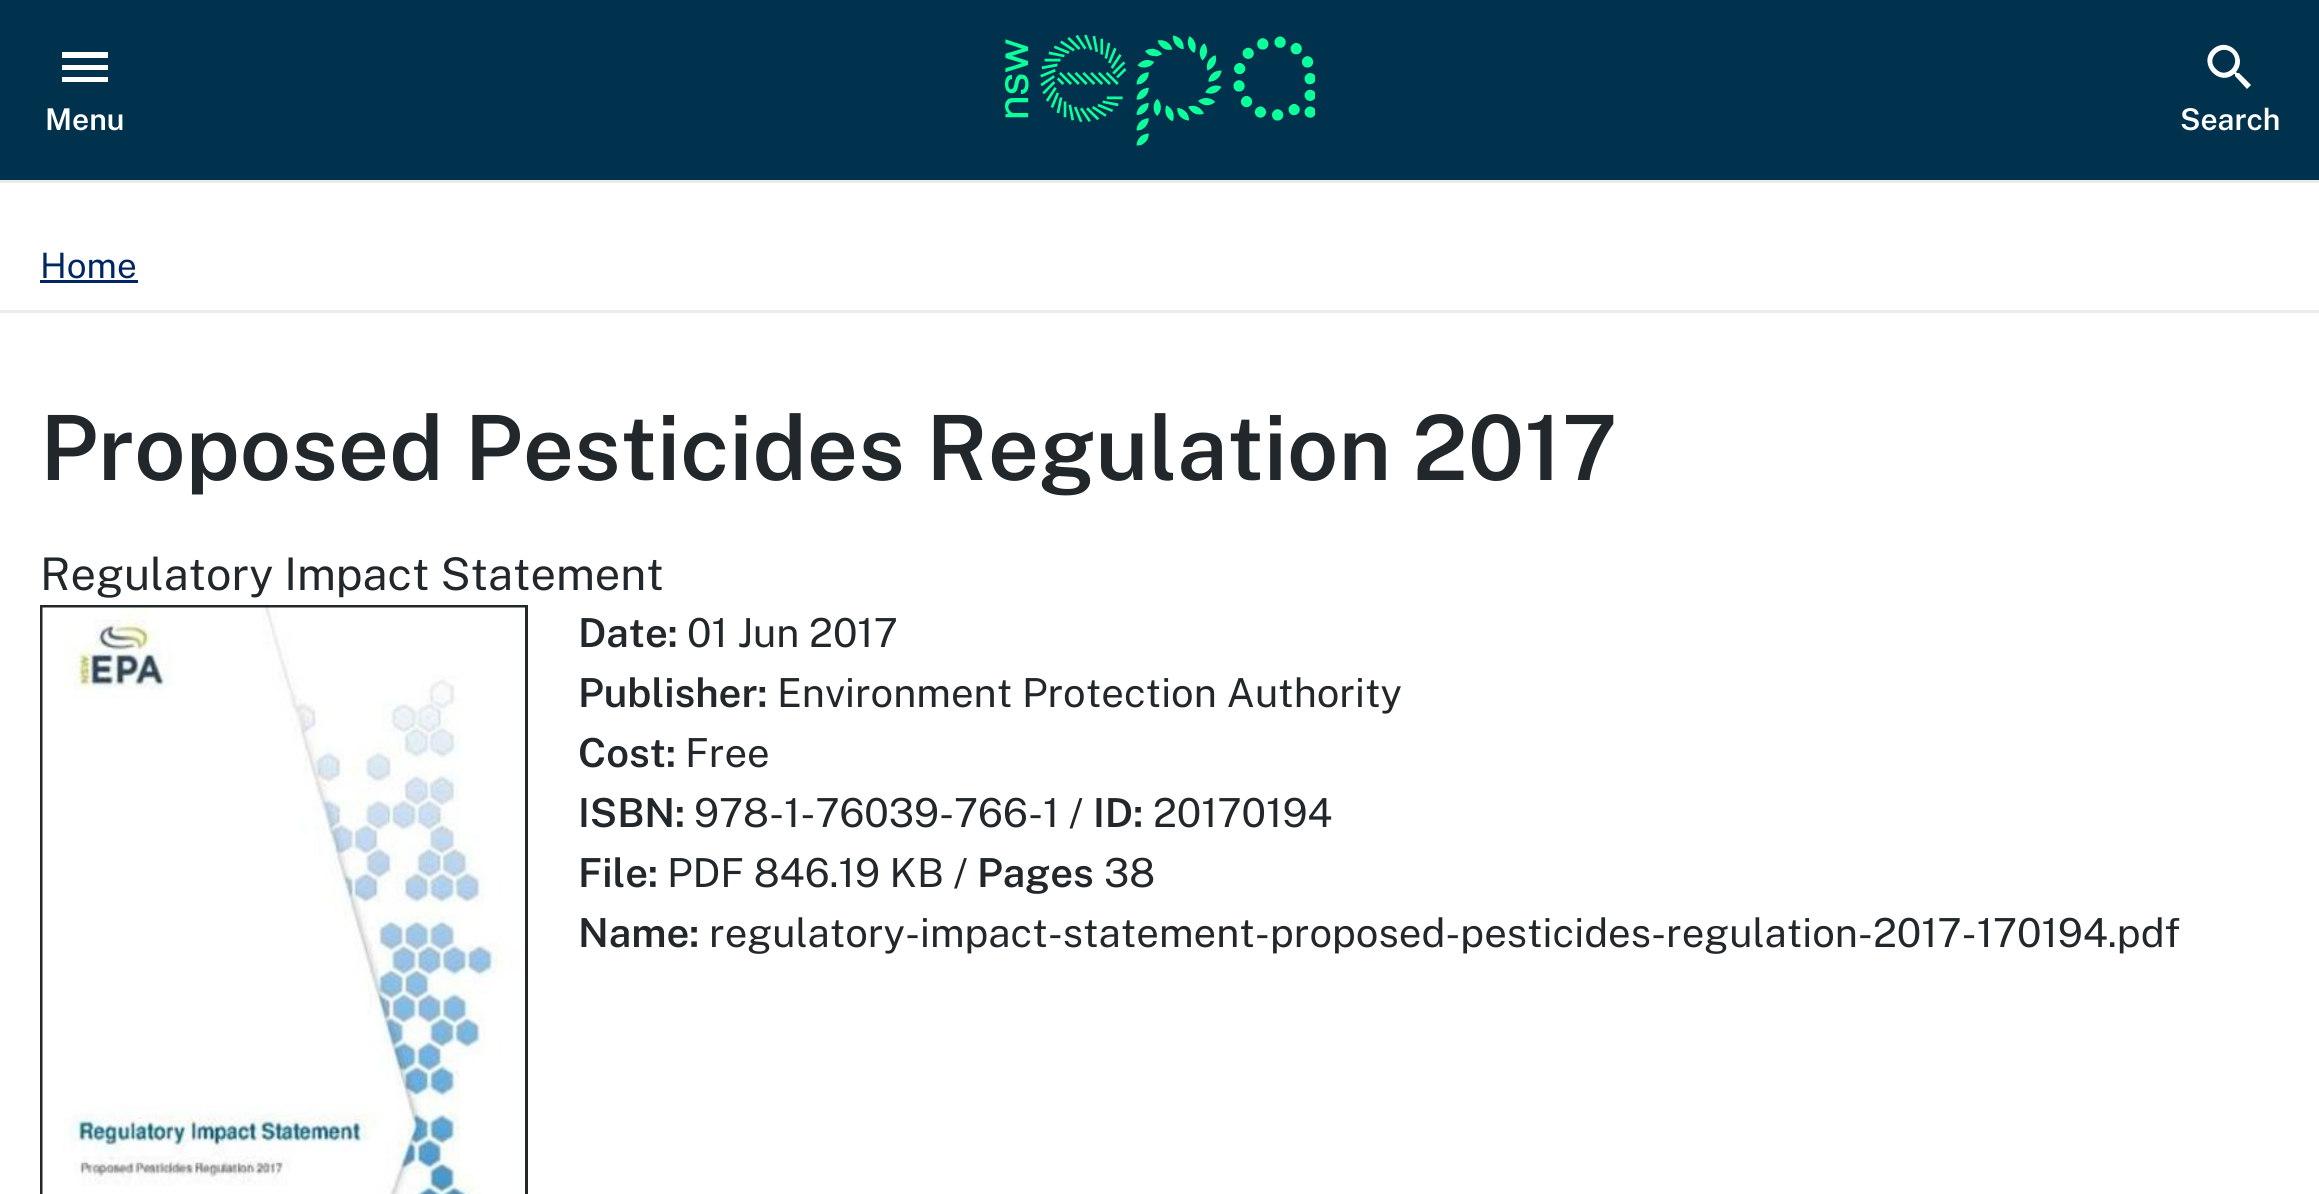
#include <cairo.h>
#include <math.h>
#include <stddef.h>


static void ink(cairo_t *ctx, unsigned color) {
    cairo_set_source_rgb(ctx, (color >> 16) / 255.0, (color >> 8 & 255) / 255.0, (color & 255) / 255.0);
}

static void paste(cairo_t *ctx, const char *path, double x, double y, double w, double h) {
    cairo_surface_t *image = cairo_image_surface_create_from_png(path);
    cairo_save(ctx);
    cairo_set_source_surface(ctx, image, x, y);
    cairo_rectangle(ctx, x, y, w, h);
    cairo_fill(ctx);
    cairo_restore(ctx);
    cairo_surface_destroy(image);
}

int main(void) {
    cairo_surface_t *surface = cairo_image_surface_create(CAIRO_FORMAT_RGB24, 2319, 1194);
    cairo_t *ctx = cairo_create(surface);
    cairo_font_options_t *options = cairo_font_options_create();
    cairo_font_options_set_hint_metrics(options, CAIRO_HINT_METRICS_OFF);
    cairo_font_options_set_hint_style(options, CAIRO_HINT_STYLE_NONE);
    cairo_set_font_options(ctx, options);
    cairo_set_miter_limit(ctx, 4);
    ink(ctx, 0xFFFFFF);
    cairo_paint(ctx);
    ink(ctx, 0x00324D);
    cairo_rectangle(ctx, 0, 0, 2319, 180);
    cairo_fill(ctx);
    ink(ctx, 0xEBEBEB);
    cairo_rectangle(ctx, 0, 180, 2319, 3);
    cairo_fill(ctx);
    ink(ctx, 0xFFFFFF);
    cairo_new_path(ctx);
    cairo_move_to(ctx, 62, 52);
    cairo_line_to(ctx, 108, 52);
    cairo_line_to(ctx, 108, 58);
    cairo_line_to(ctx, 62, 58);
    cairo_close_path(ctx);
    cairo_move_to(ctx, 62, 70);
    cairo_line_to(ctx, 62, 65);
    cairo_line_to(ctx, 108, 65);
    cairo_line_to(ctx, 108, 70);
    cairo_close_path(ctx);
    cairo_move_to(ctx, 62, 82);
    cairo_line_to(ctx, 62, 77);
    cairo_line_to(ctx, 108, 77);
    cairo_line_to(ctx, 108, 82);
    cairo_close_path(ctx);
    cairo_fill(ctx);
    cairo_select_font_face(ctx, "Public Sans SemiBold", CAIRO_FONT_SLANT_NORMAL, CAIRO_FONT_WEIGHT_NORMAL);
    cairo_set_font_size(ctx, 30);
    cairo_move_to(ctx, 45, 130);
    cairo_show_text(ctx, "Menu");
    paste(ctx, "media/1.png", 1005, 34, 310, 112);
    cairo_new_path(ctx);
    cairo_move_to(ctx, 2216, 69);
    cairo_curve_to(ctx, 2226, 80, 2242, 64, 2232, 53);
    cairo_curve_to(ctx, 2221, 43, 2205, 59, 2216, 69);
    cairo_close_path(ctx);
    cairo_move_to(ctx, 2239, 73);
    cairo_line_to(ctx, 2251, 85);
    cairo_line_to(ctx, 2247, 89);
    cairo_line_to(ctx, 2235, 76);
    cairo_line_to(ctx, 2235, 74);
    cairo_line_to(ctx, 2234, 74);
    cairo_curve_to(ctx, 2219, 87, 2198, 64, 2212, 50);
    cairo_curve_to(ctx, 2227, 35, 2249, 56, 2236, 72);
    cairo_line_to(ctx, 2237, 73);
    cairo_close_path(ctx);
    cairo_fill(ctx);
    cairo_move_to(ctx, 2180, 130);
    cairo_show_text(ctx, "Search");
    cairo_select_font_face(ctx, "Public Sans", CAIRO_FONT_SLANT_NORMAL, CAIRO_FONT_WEIGHT_NORMAL);
    cairo_set_font_size(ctx, 35);
    ink(ctx, 0x002664);
    cairo_move_to(ctx, 40, 278);
    cairo_show_text(ctx, "Home");
    cairo_rectangle(ctx, 40, 280, 98, 3);
    cairo_fill(ctx);
    ink(ctx, 0xEBEBEB);
    cairo_rectangle(ctx, 0, 310, 2319, 3);
    cairo_fill(ctx);
    cairo_select_font_face(ctx, "Public Sans SemiBold", CAIRO_FONT_SLANT_NORMAL, CAIRO_FONT_WEIGHT_NORMAL);
    cairo_set_font_size(ctx, 90);
    ink(ctx, 0x22272B);
    cairo_move_to(ctx, 40, 480);
    cairo_show_text(ctx, "Proposed Pesticides Regulation 2017");
    cairo_select_font_face(ctx, "Public Sans", CAIRO_FONT_SLANT_NORMAL, CAIRO_FONT_WEIGHT_NORMAL);
    cairo_set_font_size(ctx, 45);
    cairo_move_to(ctx, 40, 590);
    cairo_show_text(ctx, "Regulatory Impact Statement");
    cairo_rectangle(ctx, 41.5, 606.5, 485, 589);
    cairo_set_line_width(ctx, 3);
    cairo_stroke(ctx);
    paste(ctx, "media/2.png", 42, 607, 483, 587);
    cairo_select_font_face(ctx, "Public Sans SemiBold", CAIRO_FONT_SLANT_NORMAL, CAIRO_FONT_WEIGHT_NORMAL);
    cairo_set_font_size(ctx, 40);
    cairo_move_to(ctx, 578, 647);
    cairo_show_text(ctx, "Date:");
    cairo_select_font_face(ctx, "Public Sans", CAIRO_FONT_SLANT_NORMAL, CAIRO_FONT_WEIGHT_NORMAL);
    cairo_move_to(ctx, 687, 647);
    cairo_show_text(ctx, "01 Jun 2017");
    cairo_select_font_face(ctx, "Public Sans SemiBold", CAIRO_FONT_SLANT_NORMAL, CAIRO_FONT_WEIGHT_NORMAL);
    cairo_move_to(ctx, 578, 707);
    cairo_show_text(ctx, "Publisher:");
    cairo_select_font_face(ctx, "Public Sans", CAIRO_FONT_SLANT_NORMAL, CAIRO_FONT_WEIGHT_NORMAL);
    cairo_move_to(ctx, 777, 707);
    cairo_show_text(ctx, "Environment Protection Authority");
    cairo_select_font_face(ctx, "Public Sans SemiBold", CAIRO_FONT_SLANT_NORMAL, CAIRO_FONT_WEIGHT_NORMAL);
    cairo_move_to(ctx, 578, 767);
    cairo_show_text(ctx, "Cost:");
    cairo_select_font_face(ctx, "Public Sans", CAIRO_FONT_SLANT_NORMAL, CAIRO_FONT_WEIGHT_NORMAL);
    cairo_move_to(ctx, 685, 767);
    cairo_show_text(ctx, "Free");
    cairo_select_font_face(ctx, "Public Sans SemiBold", CAIRO_FONT_SLANT_NORMAL, CAIRO_FONT_WEIGHT_NORMAL);
    cairo_move_to(ctx, 578, 827);
    cairo_show_text(ctx, "ISBN:");
    cairo_select_font_face(ctx, "Public Sans", CAIRO_FONT_SLANT_NORMAL, CAIRO_FONT_WEIGHT_NORMAL);
    cairo_move_to(ctx, 694, 827);
    cairo_show_text(ctx, "978-1-76039-766-1 /");
    cairo_select_font_face(ctx, "Public Sans SemiBold", CAIRO_FONT_SLANT_NORMAL, CAIRO_FONT_WEIGHT_NORMAL);
    cairo_move_to(ctx, 1093, 827);
    cairo_show_text(ctx, "ID:");
    cairo_select_font_face(ctx, "Public Sans", CAIRO_FONT_SLANT_NORMAL, CAIRO_FONT_WEIGHT_NORMAL);
    cairo_move_to(ctx, 1153, 827);
    cairo_show_text(ctx, "20170194");
    cairo_select_font_face(ctx, "Public Sans SemiBold", CAIRO_FONT_SLANT_NORMAL, CAIRO_FONT_WEIGHT_NORMAL);
    cairo_move_to(ctx, 578, 887);
    cairo_show_text(ctx, "File:");
    cairo_select_font_face(ctx, "Public Sans", CAIRO_FONT_SLANT_NORMAL, CAIRO_FONT_WEIGHT_NORMAL);
    cairo_move_to(ctx, 667, 887);
    cairo_show_text(ctx, "PDF 846.19 KB /");
    cairo_select_font_face(ctx, "Public Sans SemiBold", CAIRO_FONT_SLANT_NORMAL, CAIRO_FONT_WEIGHT_NORMAL);
    cairo_move_to(ctx, 977, 887);
    cairo_show_text(ctx, "Pages");
    cairo_select_font_face(ctx, "Public Sans", CAIRO_FONT_SLANT_NORMAL, CAIRO_FONT_WEIGHT_NORMAL);
    cairo_move_to(ctx, 1104, 887);
    cairo_show_text(ctx, "38");
    cairo_select_font_face(ctx, "Public Sans SemiBold", CAIRO_FONT_SLANT_NORMAL, CAIRO_FONT_WEIGHT_NORMAL);
    cairo_move_to(ctx, 578, 947);
    cairo_show_text(ctx, "Name:");
    cairo_select_font_face(ctx, "Public Sans", CAIRO_FONT_SLANT_NORMAL, CAIRO_FONT_WEIGHT_NORMAL);
    cairo_move_to(ctx, 709, 947);
    cairo_show_text(ctx, "regulatory-impact-statement-proposed-pesticides-regulation-2017-170194.pdf");
    cairo_surface_write_to_png(surface, "image.png");
    cairo_font_options_destroy(options);
    cairo_destroy(ctx);
    cairo_surface_destroy(surface);
    return 0;
}
